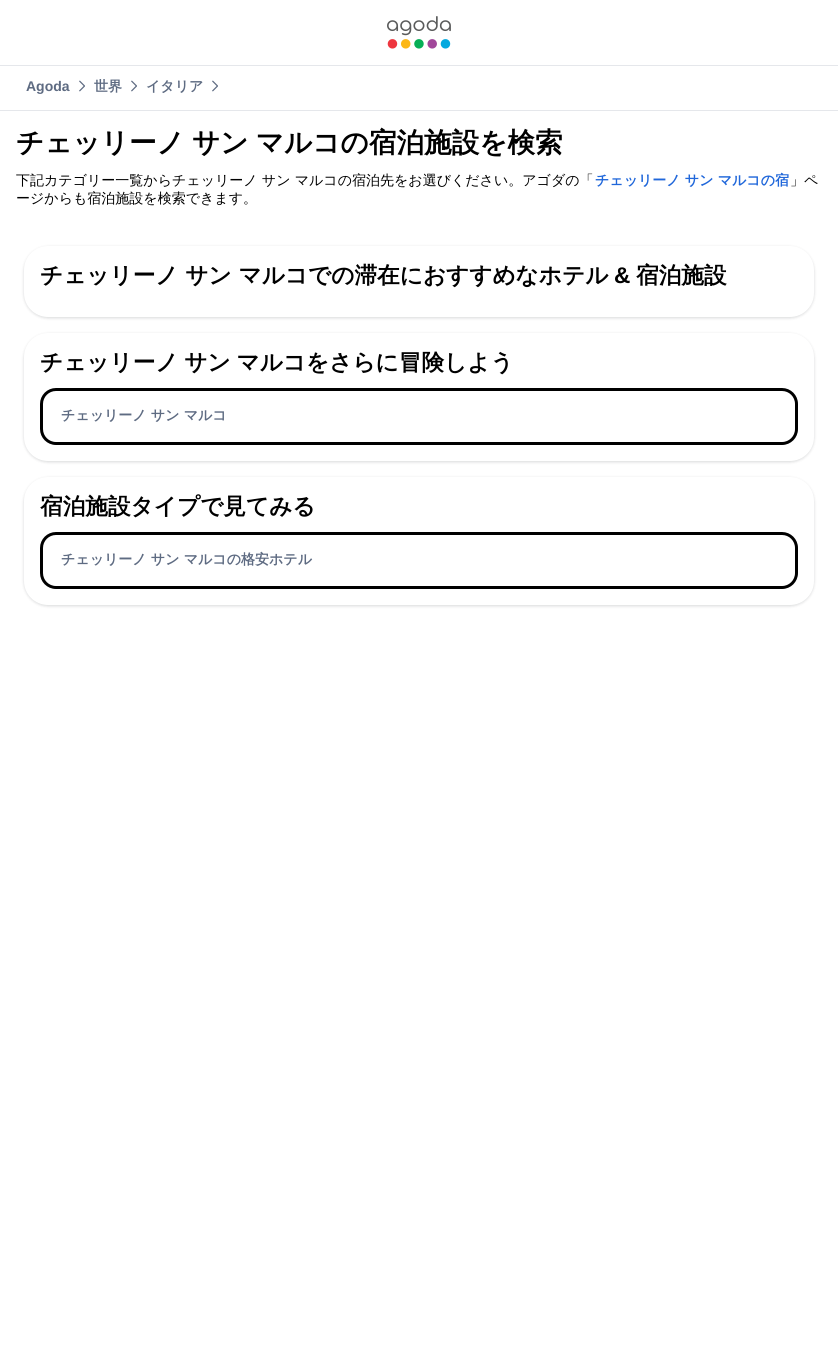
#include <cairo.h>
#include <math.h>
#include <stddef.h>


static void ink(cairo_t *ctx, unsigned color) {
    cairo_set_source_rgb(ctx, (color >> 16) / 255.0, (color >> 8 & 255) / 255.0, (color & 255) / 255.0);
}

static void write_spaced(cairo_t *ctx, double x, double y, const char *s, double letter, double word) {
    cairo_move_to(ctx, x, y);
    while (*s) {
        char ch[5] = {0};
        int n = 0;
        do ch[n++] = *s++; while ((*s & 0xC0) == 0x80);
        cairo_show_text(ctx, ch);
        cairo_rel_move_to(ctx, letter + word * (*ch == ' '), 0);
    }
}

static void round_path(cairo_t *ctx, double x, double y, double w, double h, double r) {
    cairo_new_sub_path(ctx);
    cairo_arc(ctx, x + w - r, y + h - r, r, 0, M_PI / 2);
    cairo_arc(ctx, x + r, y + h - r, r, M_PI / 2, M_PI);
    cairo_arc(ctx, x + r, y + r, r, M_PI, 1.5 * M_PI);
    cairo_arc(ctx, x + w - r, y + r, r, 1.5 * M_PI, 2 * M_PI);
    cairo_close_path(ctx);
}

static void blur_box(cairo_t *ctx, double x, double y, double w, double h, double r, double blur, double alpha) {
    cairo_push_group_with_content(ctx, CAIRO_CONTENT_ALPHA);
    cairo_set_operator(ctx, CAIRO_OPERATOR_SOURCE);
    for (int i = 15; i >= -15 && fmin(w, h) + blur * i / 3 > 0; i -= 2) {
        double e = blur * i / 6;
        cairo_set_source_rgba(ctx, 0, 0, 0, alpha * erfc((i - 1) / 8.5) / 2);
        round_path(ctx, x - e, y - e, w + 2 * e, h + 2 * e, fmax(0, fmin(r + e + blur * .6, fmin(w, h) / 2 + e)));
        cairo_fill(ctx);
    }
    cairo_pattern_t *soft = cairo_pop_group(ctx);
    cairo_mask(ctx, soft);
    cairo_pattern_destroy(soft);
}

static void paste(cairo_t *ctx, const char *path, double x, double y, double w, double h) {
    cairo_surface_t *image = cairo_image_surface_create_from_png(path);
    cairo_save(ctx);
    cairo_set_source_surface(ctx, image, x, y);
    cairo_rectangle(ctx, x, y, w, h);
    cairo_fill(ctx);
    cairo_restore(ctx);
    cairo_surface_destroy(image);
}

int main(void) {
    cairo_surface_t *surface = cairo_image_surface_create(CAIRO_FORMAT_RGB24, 838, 1350);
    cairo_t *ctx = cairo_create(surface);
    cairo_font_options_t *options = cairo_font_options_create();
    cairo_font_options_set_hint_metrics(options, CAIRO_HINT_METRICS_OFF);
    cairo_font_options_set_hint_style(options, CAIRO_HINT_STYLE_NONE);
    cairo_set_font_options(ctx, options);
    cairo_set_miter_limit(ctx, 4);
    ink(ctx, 0xFFFFFF);
    cairo_paint(ctx);
    paste(ctx, "media/1.png", 387, 16, 64, 33);
    ink(ctx, 0xE5E7EB);
    cairo_rectangle(ctx, 0, 65, 838, 1);
    cairo_fill(ctx);
    cairo_select_font_face(ctx, "Liberation Sans", CAIRO_FONT_SLANT_NORMAL, CAIRO_FONT_WEIGHT_BOLD);
    cairo_set_font_size(ctx, 14);
    ink(ctx, 0x5E6B82);
    cairo_move_to(ctx, 26, 91);
    cairo_show_text(ctx, "Agoda");
    paste(ctx, "media/2.png", 79, 80, 6, 12);
    cairo_select_font_face(ctx, "WenQuanYi Zen Hei", CAIRO_FONT_SLANT_NORMAL, CAIRO_FONT_WEIGHT_BOLD);
    cairo_move_to(ctx, 94, 91);
    cairo_show_text(ctx, "世界");
    paste(ctx, "media/2.png", 131, 80, 6, 12);
    cairo_move_to(ctx, 146, 91);
    cairo_show_text(ctx, "イタリア");
    paste(ctx, "media/2.png", 212, 80, 6, 12);
    ink(ctx, 0xE5E7EB);
    cairo_rectangle(ctx, 0, 110, 838, 1);
    cairo_fill(ctx);
    cairo_set_font_size(ctx, 27.6);
    ink(ctx, 0x000000);
    write_spaced(ctx, 16, 152, "チェッリーノ サン マルコの宿泊施設を検索", 0, -1);
    cairo_select_font_face(ctx, "WenQuanYi Zen Hei Medium", CAIRO_FONT_SLANT_NORMAL, CAIRO_FONT_WEIGHT_NORMAL);
    cairo_set_font_size(ctx, 14);
    cairo_move_to(ctx, 16, 185);
    cairo_show_text(ctx, "下記カテゴリー一覧からチェッリーノ サン マルコの宿泊先をお選びください。アゴダの「");
    cairo_select_font_face(ctx, "WenQuanYi Zen Hei", CAIRO_FONT_SLANT_NORMAL, CAIRO_FONT_WEIGHT_BOLD);
    ink(ctx, 0x2067DA);
    cairo_move_to(ctx, 595, 185);
    cairo_show_text(ctx, "チェッリーノ サン マルコの宿");
    cairo_select_font_face(ctx, "WenQuanYi Zen Hei Medium", CAIRO_FONT_SLANT_NORMAL, CAIRO_FONT_WEIGHT_NORMAL);
    ink(ctx, 0x000000);
    cairo_move_to(ctx, 790, 185);
    cairo_show_text(ctx, "」ペ");
    cairo_move_to(ctx, 16, 203);
    cairo_show_text(ctx, "ージからも宿泊施設を検索できます。");
    ink(ctx, 0x04070A);
    blur_box(ctx, 24, 247, 790, 71, 24, 1.5, 0.16);
    ink(ctx, 0xFFFFFF);
    round_path(ctx, 24, 246, 790, 71, 24);
    cairo_fill(ctx);
    cairo_select_font_face(ctx, "WenQuanYi Zen Hei", CAIRO_FONT_SLANT_NORMAL, CAIRO_FONT_WEIGHT_BOLD);
    cairo_set_font_size(ctx, 22.65);
    ink(ctx, 0x000000);
    cairo_move_to(ctx, 40, 283);
    cairo_show_text(ctx, "チェッリーノ サン マルコでの滞在におすすめなホテル");
    cairo_select_font_face(ctx, "Liberation Sans", CAIRO_FONT_SLANT_NORMAL, CAIRO_FONT_WEIGHT_BOLD);
    cairo_move_to(ctx, 614, 283);
    cairo_show_text(ctx, "&");
    cairo_select_font_face(ctx, "WenQuanYi Zen Hei", CAIRO_FONT_SLANT_NORMAL, CAIRO_FONT_WEIGHT_BOLD);
    cairo_move_to(ctx, 636, 283);
    cairo_show_text(ctx, "宿泊施設");
    ink(ctx, 0x04070A);
    blur_box(ctx, 24, 334, 790, 128, 24, 1.5, 0.16);
    ink(ctx, 0xFFFFFF);
    round_path(ctx, 24, 333, 790, 128, 24);
    cairo_fill(ctx);
    ink(ctx, 0x000000);
    write_spaced(ctx, 40, 370, "チェッリーノ サン マルコをさらに冒険しよう", 0, -1);
    round_path(ctx, 41.5, 389.5, 755, 54, 14.5);
    cairo_set_line_width(ctx, 3);
    cairo_stroke(ctx);
    cairo_set_font_size(ctx, 14);
    ink(ctx, 0x5E6B82);
    cairo_move_to(ctx, 61, 420);
    cairo_show_text(ctx, "チェッリーノ サン マルコ");
    ink(ctx, 0x04070A);
    blur_box(ctx, 24, 478, 790, 128, 24, 1.5, 0.16);
    ink(ctx, 0xFFFFFF);
    round_path(ctx, 24, 477, 790, 128, 24);
    cairo_fill(ctx);
    cairo_set_font_size(ctx, 22.65);
    ink(ctx, 0x000000);
    cairo_move_to(ctx, 40, 514);
    cairo_show_text(ctx, "宿泊施設タイプで見てみる");
    round_path(ctx, 41.5, 533.5, 755, 54, 14.5);
    cairo_stroke(ctx);
    cairo_set_font_size(ctx, 14);
    ink(ctx, 0x5E6B82);
    cairo_move_to(ctx, 61, 564);
    cairo_show_text(ctx, "チェッリーノ サン マルコの格安ホテル");
    cairo_surface_write_to_png(surface, "image.png");
    cairo_font_options_destroy(options);
    cairo_destroy(ctx);
    cairo_surface_destroy(surface);
    return 0;
}
